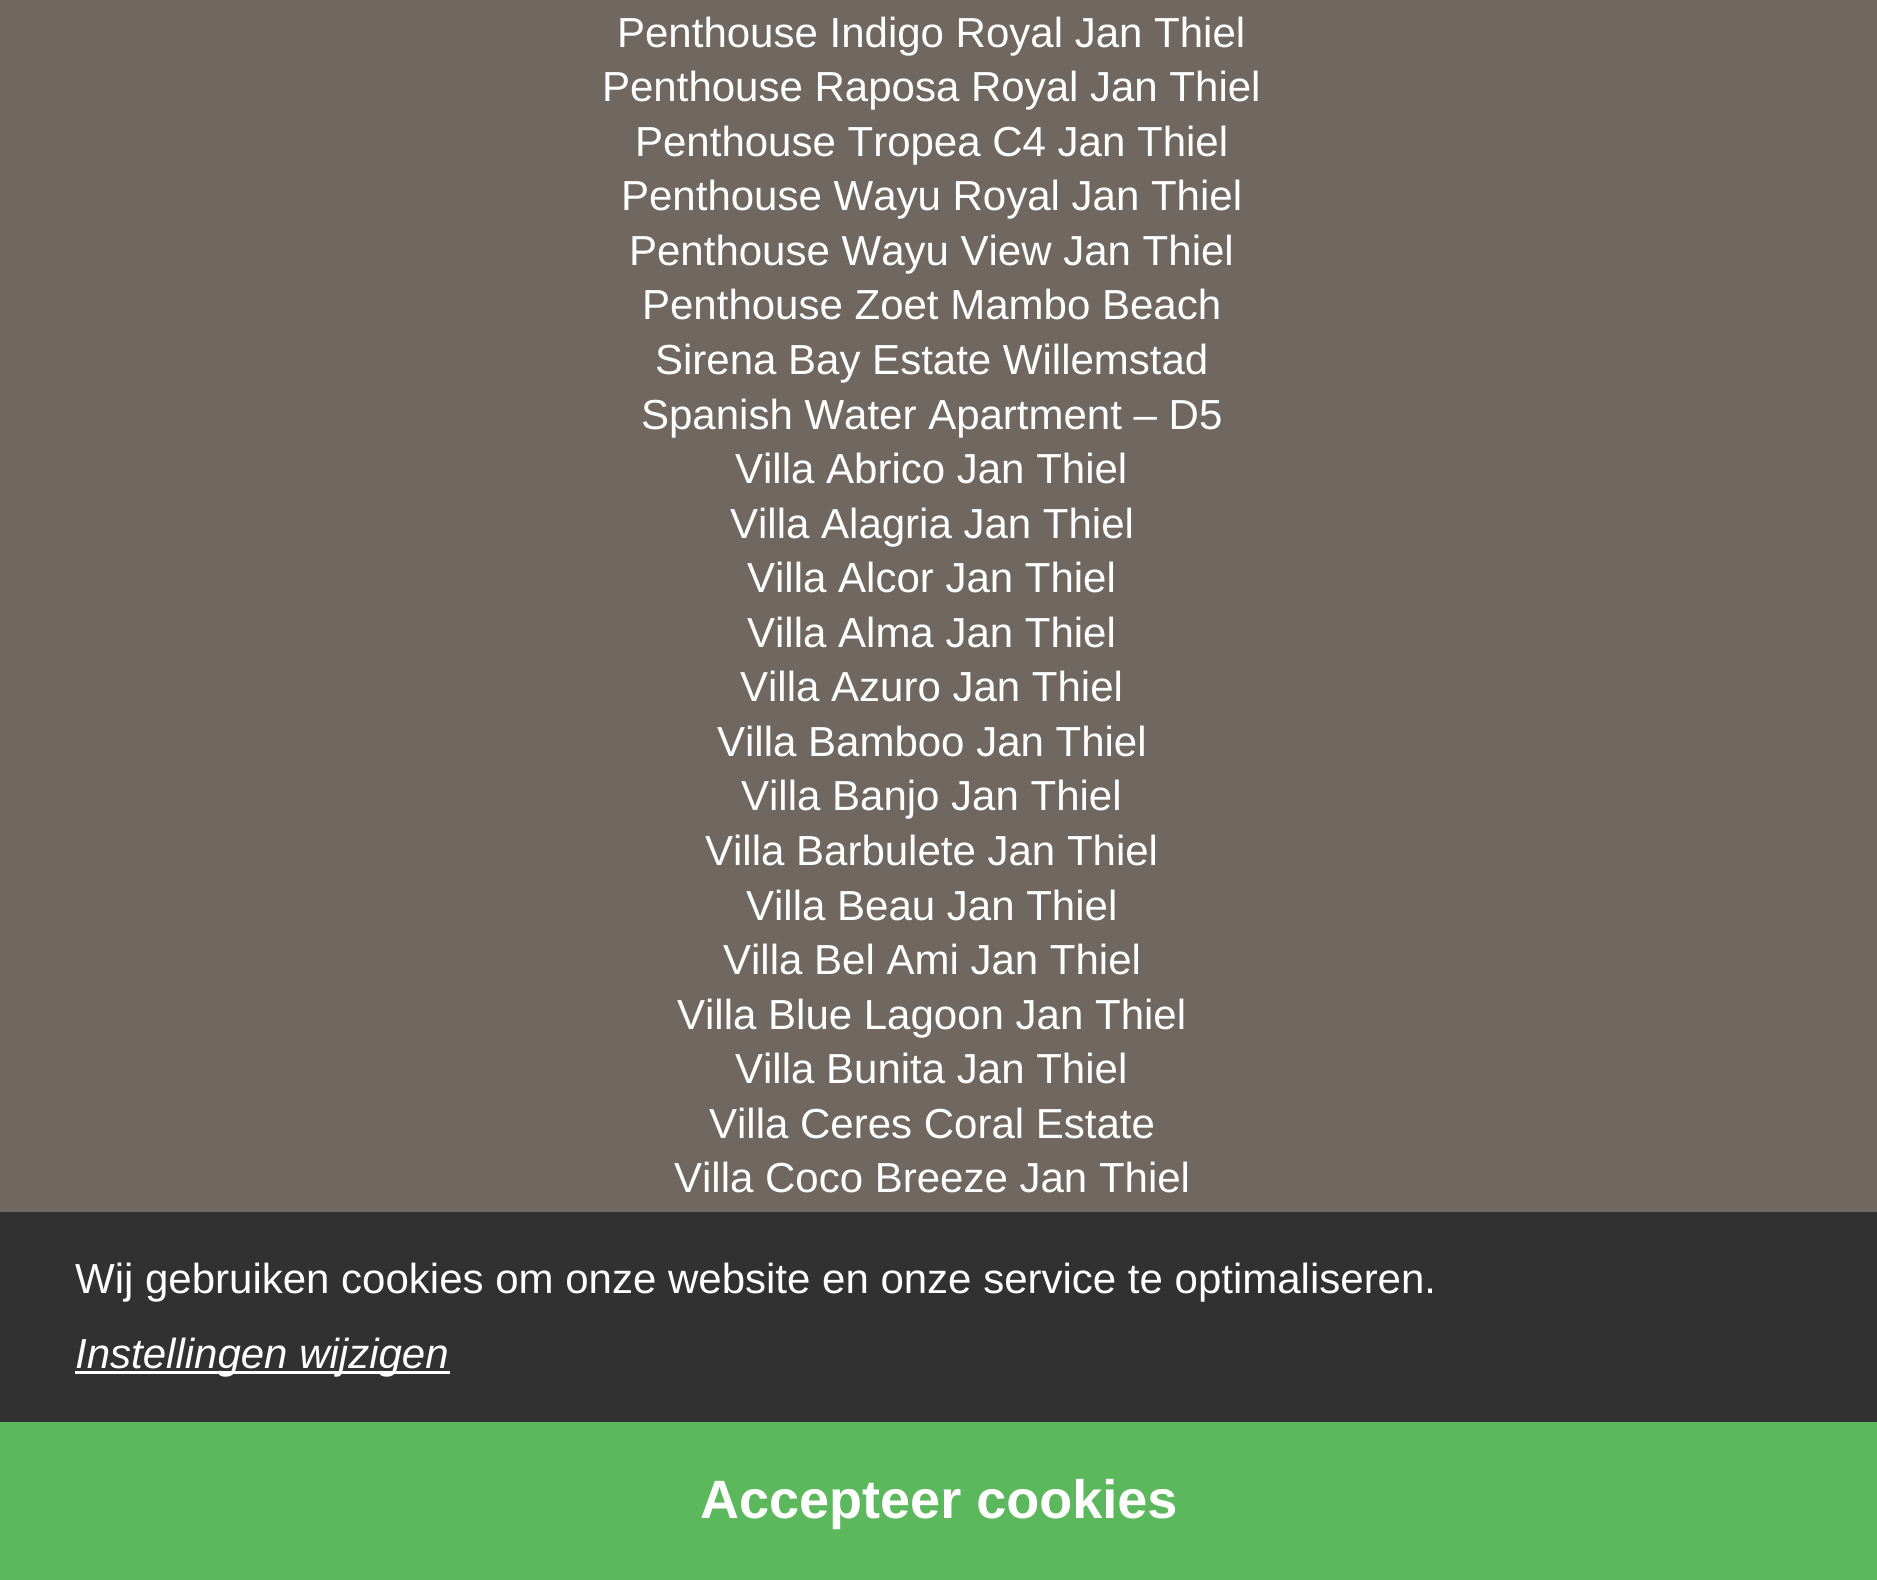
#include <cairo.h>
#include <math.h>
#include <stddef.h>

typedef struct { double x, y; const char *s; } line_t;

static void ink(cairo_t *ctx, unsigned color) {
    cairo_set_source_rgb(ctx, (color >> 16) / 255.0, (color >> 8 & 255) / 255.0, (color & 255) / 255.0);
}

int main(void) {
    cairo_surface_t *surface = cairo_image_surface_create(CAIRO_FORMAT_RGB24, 1877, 1580);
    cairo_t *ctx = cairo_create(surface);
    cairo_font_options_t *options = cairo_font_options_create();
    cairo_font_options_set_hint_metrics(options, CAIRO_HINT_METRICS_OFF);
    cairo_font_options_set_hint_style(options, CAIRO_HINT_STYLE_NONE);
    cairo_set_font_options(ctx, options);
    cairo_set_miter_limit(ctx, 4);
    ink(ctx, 0x706860);
    cairo_paint(ctx);
    cairo_select_font_face(ctx, "Liberation Sans", CAIRO_FONT_SLANT_NORMAL, CAIRO_FONT_WEIGHT_NORMAL);
    cairo_set_font_size(ctx, 42);
    ink(ctx, 0xFFFFFF);
    {
        static const line_t items[] = {
            {617, 47, "Penthouse Indigo Royal Jan Thiel"},
            {602, 101, "Penthouse Raposa Royal Jan Thiel"},
            {635, 156, "Penthouse Tropea C4 Jan Thiel"},
            {621, 210, "Penthouse Wayu Royal Jan Thiel"},
            {629, 265, "Penthouse Wayu View Jan Thiel"},
            {642, 319, "Penthouse Zoet Mambo Beach"},
            {655, 374, "Sirena Bay Estate Willemstad"},
            {641, 429, "Spanish Water Apartment – D5"},
            {735, 483, "Villa Abrico Jan Thiel"},
            {730, 538, "Villa Alagria Jan Thiel"},
            {747, 592, "Villa Alcor Jan Thiel"},
            {747, 647, "Villa Alma Jan Thiel"},
            {740, 701, "Villa Azuro Jan Thiel"},
            {717, 756, "Villa Bamboo Jan Thiel"},
            {741, 810, "Villa Banjo Jan Thiel"},
            {705, 865, "Villa Barbulete Jan Thiel"},
            {746, 920, "Villa Beau Jan Thiel"},
            {723, 974, "Villa Bel Ami Jan Thiel"},
            {677, 1029, "Villa Blue Lagoon Jan Thiel"},
            {735, 1083, "Villa Bunita Jan Thiel"},
            {709, 1138, "Villa Ceres Coral Estate"},
            {674, 1192, "Villa Coco Breeze Jan Thiel"},
        };
        for (size_t i = 0; i < sizeof items / sizeof *items; i++) {
            cairo_move_to(ctx, items[i].x, items[i].y);
            cairo_show_text(ctx, items[i].s);
        }
    }
    ink(ctx, 0x313131);
    cairo_rectangle(ctx, 0, 1212, 1877, 210);
    cairo_fill(ctx);
    ink(ctx, 0xFFFFFF);
    cairo_move_to(ctx, 75, 1293);
    cairo_show_text(ctx, "Wij gebruiken cookies om onze website en onze service te optimaliseren.");
    cairo_rectangle(ctx, 75, 1371, 375, 3);
    cairo_fill(ctx);
    cairo_select_font_face(ctx, "Liberation Sans", CAIRO_FONT_SLANT_ITALIC, CAIRO_FONT_WEIGHT_NORMAL);
    cairo_move_to(ctx, 75, 1368);
    cairo_show_text(ctx, "Instellingen wijzigen");
    ink(ctx, 0x5CB85C);
    cairo_rectangle(ctx, 0, 1422, 1877, 158);
    cairo_fill(ctx);
    cairo_select_font_face(ctx, "Liberation Sans", CAIRO_FONT_SLANT_NORMAL, CAIRO_FONT_WEIGHT_BOLD);
    cairo_set_font_size(ctx, 54);
    ink(ctx, 0xFFFFFF);
    cairo_move_to(ctx, 700, 1518);
    cairo_show_text(ctx, "Accepteer cookies");
    cairo_surface_write_to_png(surface, "image.png");
    cairo_font_options_destroy(options);
    cairo_destroy(ctx);
    cairo_surface_destroy(surface);
    return 0;
}
